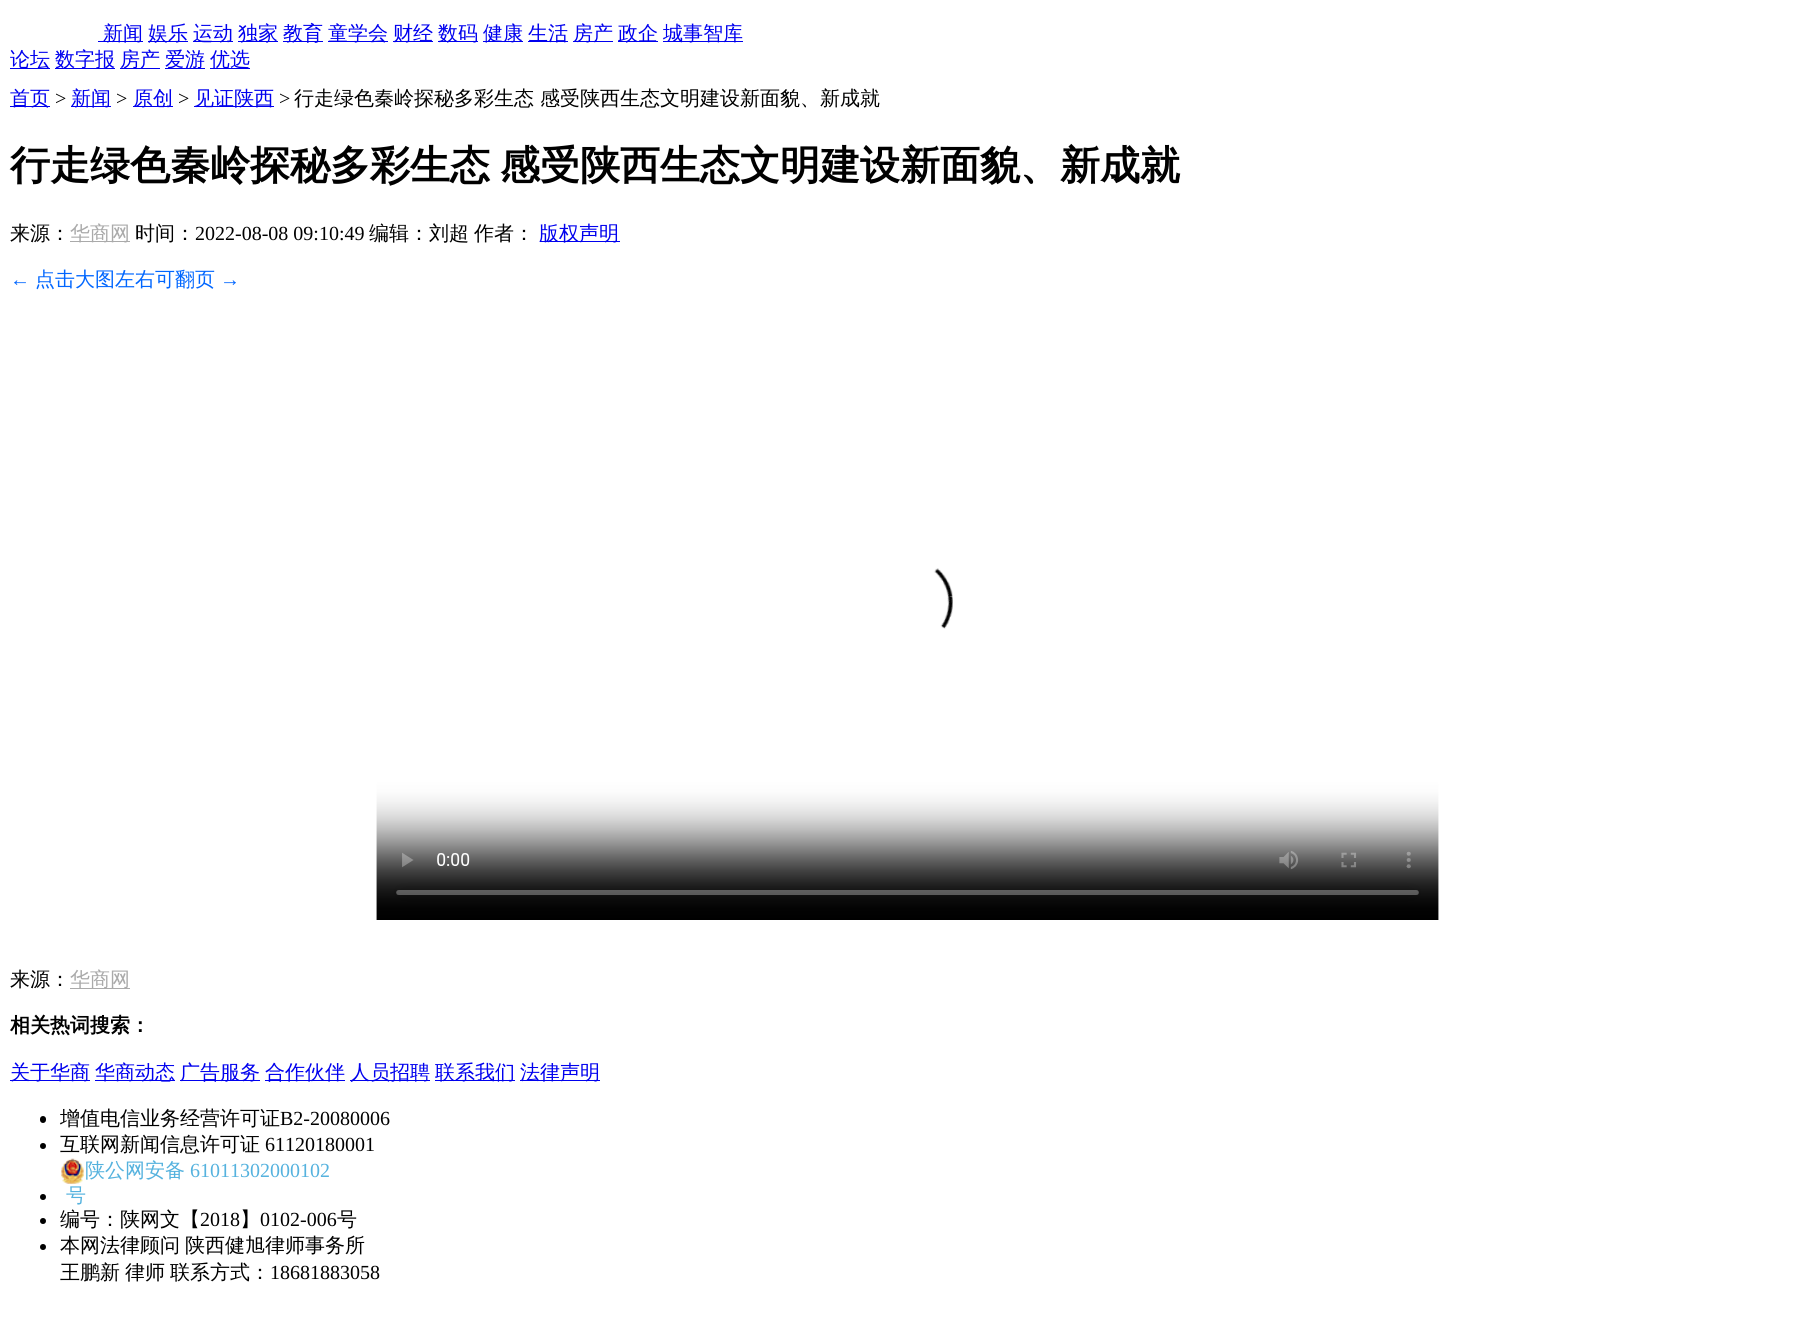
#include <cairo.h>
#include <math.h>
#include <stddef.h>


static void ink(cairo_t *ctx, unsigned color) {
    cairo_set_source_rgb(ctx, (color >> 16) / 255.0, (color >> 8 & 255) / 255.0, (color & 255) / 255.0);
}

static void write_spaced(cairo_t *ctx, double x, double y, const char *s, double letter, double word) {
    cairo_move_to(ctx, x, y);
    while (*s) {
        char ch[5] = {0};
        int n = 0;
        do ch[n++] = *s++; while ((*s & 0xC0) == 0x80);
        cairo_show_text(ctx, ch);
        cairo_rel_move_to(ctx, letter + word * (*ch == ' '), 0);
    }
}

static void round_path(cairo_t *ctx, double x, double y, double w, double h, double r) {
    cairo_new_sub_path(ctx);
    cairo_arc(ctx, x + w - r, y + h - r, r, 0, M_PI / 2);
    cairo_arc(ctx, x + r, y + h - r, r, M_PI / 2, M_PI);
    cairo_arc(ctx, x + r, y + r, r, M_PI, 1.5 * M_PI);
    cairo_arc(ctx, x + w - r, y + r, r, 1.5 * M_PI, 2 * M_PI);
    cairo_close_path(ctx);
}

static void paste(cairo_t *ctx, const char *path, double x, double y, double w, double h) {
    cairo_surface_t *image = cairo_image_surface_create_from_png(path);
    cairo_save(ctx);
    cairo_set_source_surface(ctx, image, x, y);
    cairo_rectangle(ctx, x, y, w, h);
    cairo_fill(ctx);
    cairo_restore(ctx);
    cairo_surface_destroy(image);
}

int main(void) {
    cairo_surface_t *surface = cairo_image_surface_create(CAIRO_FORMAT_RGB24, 1815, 1317);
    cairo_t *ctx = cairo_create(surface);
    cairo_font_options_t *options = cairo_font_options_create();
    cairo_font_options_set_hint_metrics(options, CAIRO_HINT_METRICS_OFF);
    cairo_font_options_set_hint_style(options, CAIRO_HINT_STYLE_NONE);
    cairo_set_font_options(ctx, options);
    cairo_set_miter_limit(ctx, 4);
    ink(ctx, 0xFFFFFF);
    cairo_paint(ctx);
    ink(ctx, 0x0000EE);
    cairo_rectangle(ctx, 98, 41, 45, 1);
    cairo_fill(ctx);
    cairo_select_font_face(ctx, "WenQuanYi Zen Hei Medium", CAIRO_FONT_SLANT_NORMAL, CAIRO_FONT_WEIGHT_NORMAL);
    cairo_set_font_size(ctx, 20);
    cairo_move_to(ctx, 103, 40);
    cairo_show_text(ctx, "新闻");
    cairo_rectangle(ctx, 148, 41, 40, 1);
    cairo_fill(ctx);
    cairo_move_to(ctx, 148, 40);
    cairo_show_text(ctx, "娱乐");
    cairo_rectangle(ctx, 193, 41, 40, 1);
    cairo_fill(ctx);
    cairo_move_to(ctx, 193, 40);
    cairo_show_text(ctx, "运动");
    cairo_rectangle(ctx, 238, 41, 40, 1);
    cairo_fill(ctx);
    cairo_move_to(ctx, 238, 40);
    cairo_show_text(ctx, "独家");
    cairo_rectangle(ctx, 283, 41, 40, 1);
    cairo_fill(ctx);
    cairo_move_to(ctx, 283, 40);
    cairo_show_text(ctx, "教育");
    cairo_rectangle(ctx, 328, 41, 60, 1);
    cairo_fill(ctx);
    cairo_move_to(ctx, 328, 40);
    cairo_show_text(ctx, "童学会");
    cairo_rectangle(ctx, 393, 41, 40, 1);
    cairo_fill(ctx);
    cairo_move_to(ctx, 393, 40);
    cairo_show_text(ctx, "财经");
    cairo_rectangle(ctx, 438, 41, 40, 1);
    cairo_fill(ctx);
    cairo_move_to(ctx, 438, 40);
    cairo_show_text(ctx, "数码");
    cairo_rectangle(ctx, 483, 41, 40, 1);
    cairo_fill(ctx);
    cairo_move_to(ctx, 483, 40);
    cairo_show_text(ctx, "健康");
    cairo_rectangle(ctx, 528, 41, 40, 1);
    cairo_fill(ctx);
    cairo_move_to(ctx, 528, 40);
    cairo_show_text(ctx, "生活");
    cairo_rectangle(ctx, 573, 41, 40, 1);
    cairo_fill(ctx);
    cairo_move_to(ctx, 573, 40);
    cairo_show_text(ctx, "房产");
    cairo_rectangle(ctx, 618, 41, 40, 1);
    cairo_fill(ctx);
    cairo_move_to(ctx, 618, 40);
    cairo_show_text(ctx, "政企");
    cairo_rectangle(ctx, 663, 41, 80, 1);
    cairo_fill(ctx);
    cairo_move_to(ctx, 663, 40);
    cairo_show_text(ctx, "城事智库");
    cairo_rectangle(ctx, 10, 68, 40, 1);
    cairo_fill(ctx);
    cairo_move_to(ctx, 10, 66);
    cairo_show_text(ctx, "论坛");
    cairo_rectangle(ctx, 55, 68, 60, 1);
    cairo_fill(ctx);
    cairo_move_to(ctx, 55, 66);
    cairo_show_text(ctx, "数字报");
    cairo_rectangle(ctx, 120, 68, 40, 1);
    cairo_fill(ctx);
    cairo_move_to(ctx, 120, 66);
    cairo_show_text(ctx, "房产");
    cairo_rectangle(ctx, 165, 68, 40, 1);
    cairo_fill(ctx);
    cairo_move_to(ctx, 165, 66);
    cairo_show_text(ctx, "爱游");
    cairo_rectangle(ctx, 210, 68, 40, 1);
    cairo_fill(ctx);
    cairo_move_to(ctx, 210, 66);
    cairo_show_text(ctx, "优选");
    cairo_rectangle(ctx, 10, 106, 40, 1);
    cairo_fill(ctx);
    cairo_move_to(ctx, 10, 105);
    cairo_show_text(ctx, "首页");
    cairo_select_font_face(ctx, "Liberation Serif", CAIRO_FONT_SLANT_NORMAL, CAIRO_FONT_WEIGHT_NORMAL);
    ink(ctx, 0x000000);
    cairo_move_to(ctx, 55, 105);
    cairo_show_text(ctx, ">");
    ink(ctx, 0x0000EE);
    cairo_rectangle(ctx, 71, 106, 40, 1);
    cairo_fill(ctx);
    cairo_select_font_face(ctx, "WenQuanYi Zen Hei Medium", CAIRO_FONT_SLANT_NORMAL, CAIRO_FONT_WEIGHT_NORMAL);
    cairo_move_to(ctx, 71, 105);
    cairo_show_text(ctx, "新闻");
    cairo_select_font_face(ctx, "Liberation Serif", CAIRO_FONT_SLANT_NORMAL, CAIRO_FONT_WEIGHT_NORMAL);
    ink(ctx, 0x000000);
    cairo_move_to(ctx, 116, 105);
    cairo_show_text(ctx, ">");
    ink(ctx, 0x0000EE);
    cairo_rectangle(ctx, 133, 106, 40, 1);
    cairo_fill(ctx);
    cairo_select_font_face(ctx, "WenQuanYi Zen Hei Medium", CAIRO_FONT_SLANT_NORMAL, CAIRO_FONT_WEIGHT_NORMAL);
    cairo_move_to(ctx, 133, 105);
    cairo_show_text(ctx, "原创");
    cairo_select_font_face(ctx, "Liberation Serif", CAIRO_FONT_SLANT_NORMAL, CAIRO_FONT_WEIGHT_NORMAL);
    ink(ctx, 0x000000);
    cairo_move_to(ctx, 178, 105);
    cairo_show_text(ctx, ">");
    ink(ctx, 0x0000EE);
    cairo_rectangle(ctx, 194, 106, 80, 1);
    cairo_fill(ctx);
    cairo_select_font_face(ctx, "WenQuanYi Zen Hei Medium", CAIRO_FONT_SLANT_NORMAL, CAIRO_FONT_WEIGHT_NORMAL);
    cairo_move_to(ctx, 194, 105);
    cairo_show_text(ctx, "见证陕西");
    cairo_select_font_face(ctx, "Liberation Serif", CAIRO_FONT_SLANT_NORMAL, CAIRO_FONT_WEIGHT_NORMAL);
    ink(ctx, 0x000000);
    cairo_move_to(ctx, 279, 105);
    cairo_show_text(ctx, ">");
    cairo_select_font_face(ctx, "WenQuanYi Zen Hei Medium", CAIRO_FONT_SLANT_NORMAL, CAIRO_FONT_WEIGHT_NORMAL);
    cairo_move_to(ctx, 294, 105);
    cairo_show_text(ctx, "行走绿色秦岭探秘多彩生态 感受陕西生态文明建设新面貌、新成就");
    cairo_select_font_face(ctx, "WenQuanYi Zen Hei", CAIRO_FONT_SLANT_NORMAL, CAIRO_FONT_WEIGHT_BOLD);
    cairo_set_font_size(ctx, 40);
    write_spaced(ctx, 10, 179, "行走绿色秦岭探秘多彩生态 感受陕西生态文明建设新面貌、新成就", 0, -2);
    cairo_select_font_face(ctx, "WenQuanYi Zen Hei Medium", CAIRO_FONT_SLANT_NORMAL, CAIRO_FONT_WEIGHT_NORMAL);
    cairo_set_font_size(ctx, 20);
    cairo_move_to(ctx, 10, 240);
    cairo_show_text(ctx, "来源：");
    ink(ctx, 0xAAAAAA);
    cairo_rectangle(ctx, 70, 241, 60, 1);
    cairo_fill(ctx);
    cairo_move_to(ctx, 70, 240);
    cairo_show_text(ctx, "华商网");
    ink(ctx, 0x000000);
    cairo_move_to(ctx, 135, 240);
    cairo_show_text(ctx, "时间：");
    cairo_select_font_face(ctx, "Liberation Serif", CAIRO_FONT_SLANT_NORMAL, CAIRO_FONT_WEIGHT_NORMAL);
    cairo_move_to(ctx, 195, 240);
    cairo_show_text(ctx, "2022-08-08 09:10:49");
    cairo_select_font_face(ctx, "WenQuanYi Zen Hei Medium", CAIRO_FONT_SLANT_NORMAL, CAIRO_FONT_WEIGHT_NORMAL);
    cairo_move_to(ctx, 369, 240);
    cairo_show_text(ctx, "编辑：刘超");
    cairo_move_to(ctx, 474, 240);
    cairo_show_text(ctx, "作者：");
    ink(ctx, 0x0000EE);
    cairo_rectangle(ctx, 540, 241, 80, 1);
    cairo_fill(ctx);
    cairo_move_to(ctx, 539, 240);
    cairo_show_text(ctx, "版权声明");
    cairo_select_font_face(ctx, "Liberation Serif", CAIRO_FONT_SLANT_NORMAL, CAIRO_FONT_WEIGHT_NORMAL);
    ink(ctx, 0x0066FF);
    cairo_move_to(ctx, 10, 286);
    cairo_show_text(ctx, "←");
    cairo_select_font_face(ctx, "WenQuanYi Zen Hei Medium", CAIRO_FONT_SLANT_NORMAL, CAIRO_FONT_WEIGHT_NORMAL);
    cairo_move_to(ctx, 35, 286);
    cairo_show_text(ctx, "点击大图左右可翻页");
    cairo_select_font_face(ctx, "Liberation Serif", CAIRO_FONT_SLANT_NORMAL, CAIRO_FONT_WEIGHT_NORMAL);
    cairo_move_to(ctx, 220, 286);
    cairo_show_text(ctx, "→");
    paste(ctx, "media/1.png", 376, 568, 1063, 352);
    cairo_select_font_face(ctx, "WenQuanYi Zen Hei Medium", CAIRO_FONT_SLANT_NORMAL, CAIRO_FONT_WEIGHT_NORMAL);
    ink(ctx, 0x000000);
    cairo_move_to(ctx, 10, 986);
    cairo_show_text(ctx, "来源：");
    ink(ctx, 0xAAAAAA);
    cairo_rectangle(ctx, 70, 988, 60, 1);
    cairo_fill(ctx);
    cairo_move_to(ctx, 70, 986);
    cairo_show_text(ctx, "华商网");
    cairo_select_font_face(ctx, "WenQuanYi Zen Hei", CAIRO_FONT_SLANT_NORMAL, CAIRO_FONT_WEIGHT_BOLD);
    ink(ctx, 0x000000);
    cairo_move_to(ctx, 10, 1032);
    cairo_show_text(ctx, "相关热词搜索：");
    ink(ctx, 0x0000EE);
    cairo_rectangle(ctx, 10, 1080, 80, 1);
    cairo_fill(ctx);
    cairo_select_font_face(ctx, "WenQuanYi Zen Hei Medium", CAIRO_FONT_SLANT_NORMAL, CAIRO_FONT_WEIGHT_NORMAL);
    cairo_move_to(ctx, 10, 1079);
    cairo_show_text(ctx, "关于华商");
    cairo_rectangle(ctx, 95, 1080, 80, 1);
    cairo_fill(ctx);
    cairo_move_to(ctx, 95, 1079);
    cairo_show_text(ctx, "华商动态");
    cairo_rectangle(ctx, 180, 1080, 80, 1);
    cairo_fill(ctx);
    cairo_move_to(ctx, 180, 1079);
    cairo_show_text(ctx, "广告服务");
    cairo_rectangle(ctx, 265, 1080, 80, 1);
    cairo_fill(ctx);
    cairo_move_to(ctx, 265, 1079);
    cairo_show_text(ctx, "合作伙伴");
    cairo_rectangle(ctx, 350, 1080, 80, 1);
    cairo_fill(ctx);
    cairo_move_to(ctx, 350, 1079);
    cairo_show_text(ctx, "人员招聘");
    cairo_rectangle(ctx, 435, 1080, 80, 1);
    cairo_fill(ctx);
    cairo_move_to(ctx, 435, 1079);
    cairo_show_text(ctx, "联系我们");
    cairo_rectangle(ctx, 520, 1080, 80, 1);
    cairo_fill(ctx);
    cairo_move_to(ctx, 520, 1079);
    cairo_show_text(ctx, "法律声明");
    ink(ctx, 0x000000);
    round_path(ctx, 40, 1116, 6, 7, 3);
    cairo_fill(ctx);
    cairo_move_to(ctx, 60, 1125);
    cairo_show_text(ctx, "增值电信业务经营许可证");
    cairo_select_font_face(ctx, "Liberation Serif", CAIRO_FONT_SLANT_NORMAL, CAIRO_FONT_WEIGHT_NORMAL);
    cairo_move_to(ctx, 280, 1125);
    cairo_show_text(ctx, "B2-20080006");
    cairo_new_path(ctx);
    cairo_arc(ctx, 43, 1146, 3, 0, 2 * M_PI);
    cairo_fill(ctx);
    cairo_select_font_face(ctx, "WenQuanYi Zen Hei Medium", CAIRO_FONT_SLANT_NORMAL, CAIRO_FONT_WEIGHT_NORMAL);
    cairo_move_to(ctx, 60, 1151);
    cairo_show_text(ctx, "互联网新闻信息许可证");
    cairo_select_font_face(ctx, "Liberation Serif", CAIRO_FONT_SLANT_NORMAL, CAIRO_FONT_WEIGHT_NORMAL);
    cairo_move_to(ctx, 265, 1151);
    cairo_show_text(ctx, "61120180001");
    cairo_new_path(ctx);
    cairo_arc(ctx, 43, 1197, 3, 0, 2 * M_PI);
    cairo_fill(ctx);
    paste(ctx, "media/2.png", 61, 1158, 23, 26);
    cairo_select_font_face(ctx, "WenQuanYi Zen Hei Medium", CAIRO_FONT_SLANT_NORMAL, CAIRO_FONT_WEIGHT_NORMAL);
    ink(ctx, 0x55B2DE);
    cairo_move_to(ctx, 85, 1177);
    cairo_show_text(ctx, "陕公网安备");
    cairo_select_font_face(ctx, "Liberation Serif", CAIRO_FONT_SLANT_NORMAL, CAIRO_FONT_WEIGHT_NORMAL);
    cairo_move_to(ctx, 190, 1177);
    cairo_show_text(ctx, "61011302000102");
    cairo_select_font_face(ctx, "WenQuanYi Zen Hei Medium", CAIRO_FONT_SLANT_NORMAL, CAIRO_FONT_WEIGHT_NORMAL);
    cairo_move_to(ctx, 66, 1202);
    cairo_show_text(ctx, "号");
    ink(ctx, 0x000000);
    cairo_new_path(ctx);
    cairo_arc(ctx, 43, 1221, 3, 0, 2 * M_PI);
    cairo_fill(ctx);
    cairo_move_to(ctx, 60, 1226);
    cairo_show_text(ctx, "编号：陕网文【");
    cairo_select_font_face(ctx, "Liberation Serif", CAIRO_FONT_SLANT_NORMAL, CAIRO_FONT_WEIGHT_NORMAL);
    cairo_move_to(ctx, 200, 1226);
    cairo_show_text(ctx, "2018");
    cairo_select_font_face(ctx, "WenQuanYi Zen Hei Medium", CAIRO_FONT_SLANT_NORMAL, CAIRO_FONT_WEIGHT_NORMAL);
    cairo_move_to(ctx, 240, 1226);
    cairo_show_text(ctx, "】");
    cairo_select_font_face(ctx, "Liberation Serif", CAIRO_FONT_SLANT_NORMAL, CAIRO_FONT_WEIGHT_NORMAL);
    cairo_move_to(ctx, 260, 1226);
    cairo_show_text(ctx, "0102-006");
    cairo_select_font_face(ctx, "WenQuanYi Zen Hei Medium", CAIRO_FONT_SLANT_NORMAL, CAIRO_FONT_WEIGHT_NORMAL);
    cairo_move_to(ctx, 337, 1226);
    cairo_show_text(ctx, "号");
    cairo_new_path(ctx);
    cairo_arc(ctx, 43, 1247, 3, 0, 2 * M_PI);
    cairo_fill(ctx);
    write_spaced(ctx, 60, 1252, "本网法律顾问 陕西健旭律师事务所", 0, -1);
    write_spaced(ctx, 60, 1279, "王鹏新 律师 联系方式：", 0, -1);
    cairo_select_font_face(ctx, "Liberation Serif", CAIRO_FONT_SLANT_NORMAL, CAIRO_FONT_WEIGHT_NORMAL);
    cairo_move_to(ctx, 270, 1279);
    cairo_show_text(ctx, "18681883058");
    cairo_surface_write_to_png(surface, "image.png");
    cairo_font_options_destroy(options);
    cairo_destroy(ctx);
    cairo_surface_destroy(surface);
    return 0;
}
